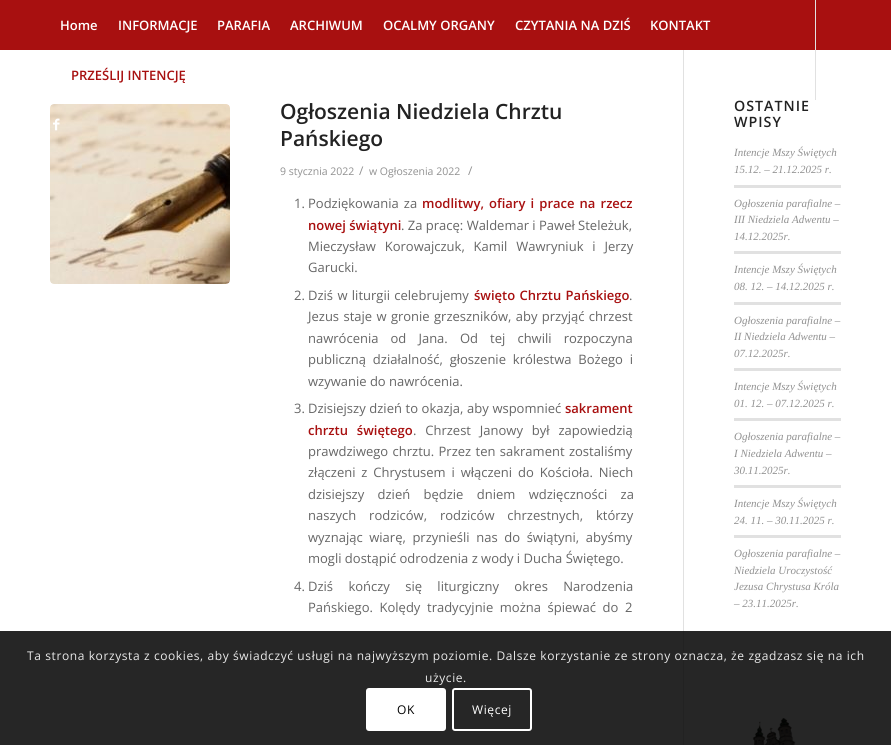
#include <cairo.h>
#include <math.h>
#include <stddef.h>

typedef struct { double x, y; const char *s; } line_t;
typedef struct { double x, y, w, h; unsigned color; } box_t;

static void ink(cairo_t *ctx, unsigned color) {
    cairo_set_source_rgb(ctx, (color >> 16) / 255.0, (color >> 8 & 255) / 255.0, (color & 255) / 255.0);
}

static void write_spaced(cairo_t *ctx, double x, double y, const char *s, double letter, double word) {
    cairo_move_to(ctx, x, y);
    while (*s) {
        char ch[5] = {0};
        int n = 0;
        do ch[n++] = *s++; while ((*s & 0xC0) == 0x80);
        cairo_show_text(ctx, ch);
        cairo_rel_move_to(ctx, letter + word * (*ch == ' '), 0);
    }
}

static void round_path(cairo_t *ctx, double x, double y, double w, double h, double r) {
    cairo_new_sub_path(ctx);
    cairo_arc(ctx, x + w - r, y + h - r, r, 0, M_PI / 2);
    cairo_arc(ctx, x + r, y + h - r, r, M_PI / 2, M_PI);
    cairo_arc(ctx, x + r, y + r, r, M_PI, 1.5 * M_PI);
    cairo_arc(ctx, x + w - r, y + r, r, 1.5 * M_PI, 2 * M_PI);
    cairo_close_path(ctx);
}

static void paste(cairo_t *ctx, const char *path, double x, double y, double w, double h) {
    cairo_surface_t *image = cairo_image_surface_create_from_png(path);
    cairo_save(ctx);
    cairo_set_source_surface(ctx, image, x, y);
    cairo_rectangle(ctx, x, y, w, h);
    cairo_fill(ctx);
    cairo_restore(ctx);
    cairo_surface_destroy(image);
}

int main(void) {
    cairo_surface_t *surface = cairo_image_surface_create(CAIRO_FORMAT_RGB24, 891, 745);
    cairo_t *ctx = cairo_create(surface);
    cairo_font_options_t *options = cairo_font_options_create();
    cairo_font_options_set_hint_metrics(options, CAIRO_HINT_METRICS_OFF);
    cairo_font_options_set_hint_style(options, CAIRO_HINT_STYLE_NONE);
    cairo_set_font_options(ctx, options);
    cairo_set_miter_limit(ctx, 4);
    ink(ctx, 0xFFFFFF);
    cairo_paint(ctx);
    {
        static const box_t items[] = {
            {683, 48, 1, 697, 0xE1E1E1},
            {0, 0, 891, 50, 0xA81010},
            {815, 0, 1, 100, 0xE1E1E1},
        };
        for (size_t i = 0; i < sizeof items / sizeof *items; i++) {
            ink(ctx, items[i].color);
            cairo_rectangle(ctx, items[i].x, items[i].y, items[i].w, items[i].h);
            cairo_fill(ctx);
        }
    }
    cairo_select_font_face(ctx, "Open Sans SemiBold", CAIRO_FONT_SLANT_NORMAL, CAIRO_FONT_WEIGHT_NORMAL);
    cairo_set_font_size(ctx, 13);
    ink(ctx, 0xFFFFFF);
    {
        static const line_t items[] = {
            {60, 30, "Home"},
            {118, 30, "INFORMACJE"},
            {217, 30, "PARAFIA"},
            {290, 30, "ARCHIWUM"},
            {383, 30, "OCALMY ORGANY"},
            {515, 30, "CZYTANIA NA DZIŚ"},
            {650, 30, "KONTAKT"},
        };
        for (size_t i = 0; i < sizeof items / sizeof *items; i++) {
            cairo_move_to(ctx, items[i].x, items[i].y);
            cairo_show_text(ctx, items[i].s);
        }
    }
    ink(ctx, 0xA81010);
    cairo_move_to(ctx, 71, 80);
    cairo_show_text(ctx, "PRZEŚLIJ INTENCJĘ");
    paste(ctx, "media/2.png", 50, 104, 180, 180);
    paste(ctx, "media/1.png", 53, 118, 7, 13);
    cairo_set_font_size(ctx, 21);
    ink(ctx, 0x222222);
    cairo_move_to(ctx, 280, 119);
    cairo_show_text(ctx, "Ogłoszenia Niedziela Chrztu");
    cairo_move_to(ctx, 280, 146);
    cairo_show_text(ctx, "Pańskiego");
    cairo_select_font_face(ctx, "Open Sans", CAIRO_FONT_SLANT_NORMAL, CAIRO_FONT_WEIGHT_NORMAL);
    cairo_set_font_size(ctx, 10.5);
    ink(ctx, 0x919191);
    cairo_move_to(ctx, 280, 175);
    cairo_show_text(ctx, "9 stycznia 2022");
    cairo_set_font_size(ctx, 12);
    cairo_move_to(ctx, 359, 175);
    cairo_show_text(ctx, "/");
    cairo_set_font_size(ctx, 10.5);
    cairo_move_to(ctx, 369, 175);
    cairo_show_text(ctx, "w Ogłoszenia 2022");
    cairo_set_font_size(ctx, 12);
    cairo_move_to(ctx, 468, 175);
    cairo_show_text(ctx, "/");
    cairo_set_font_size(ctx, 13);
    ink(ctx, 0x666666);
    cairo_move_to(ctx, 294, 208);
    cairo_show_text(ctx, "1.");
    write_spaced(ctx, 308, 208, "Podziękowania za", 0, 1.75);
    cairo_select_font_face(ctx, "Open Sans SemiBold", CAIRO_FONT_SLANT_NORMAL, CAIRO_FONT_WEIGHT_NORMAL);
    ink(ctx, 0xA81010);
    write_spaced(ctx, 422, 208, "modlitwy, ofiary i prace na rzecz", 0, 1.75);
    cairo_move_to(ctx, 308, 230);
    cairo_show_text(ctx, "nowej świątyni");
    cairo_select_font_face(ctx, "Open Sans", CAIRO_FONT_SLANT_NORMAL, CAIRO_FONT_WEIGHT_NORMAL);
    ink(ctx, 0x666666);
    cairo_move_to(ctx, 401, 230);
    cairo_show_text(ctx, ". Za pracę: Waldemar i Paweł Steleżuk,");
    write_spaced(ctx, 308, 251, "Mieczysław Korowajczuk, Kamil Wawryniuk i Jerzy", 0, 5.5);
    cairo_move_to(ctx, 308, 272);
    cairo_show_text(ctx, "Garucki.");
    cairo_move_to(ctx, 294, 300);
    cairo_show_text(ctx, "2.");
    write_spaced(ctx, 308, 300, "Dziś w liturgii celebrujemy", 0, 1);
    cairo_select_font_face(ctx, "Open Sans SemiBold", CAIRO_FONT_SLANT_NORMAL, CAIRO_FONT_WEIGHT_NORMAL);
    ink(ctx, 0xA81010);
    write_spaced(ctx, 474, 300, "święto Chrztu Pańskiego", 0, 1);
    cairo_select_font_face(ctx, "Open Sans", CAIRO_FONT_SLANT_NORMAL, CAIRO_FONT_WEIGHT_NORMAL);
    ink(ctx, 0x666666);
    cairo_move_to(ctx, 629, 300);
    cairo_show_text(ctx, ".");
    write_spaced(ctx, 308, 321, "Jezus staje w gronie grzeszników, aby przyjąć chrzest", 0, 1);
    write_spaced(ctx, 308, 343, "nawrócenia od Jana. Od tej chwili rozpoczyna", 0, 8.75);
    write_spaced(ctx, 308, 364, "publiczną działalność, głoszenie królestwa Bożego i", 0, 3.5);
    cairo_move_to(ctx, 308, 386);
    cairo_show_text(ctx, "wzywanie do nawrócenia.");
    cairo_move_to(ctx, 294, 413);
    cairo_show_text(ctx, "3.");
    write_spaced(ctx, 308, 413, "Dzisiejszy dzień to okazja, aby wspomnieć", 0, 0.25);
    cairo_select_font_face(ctx, "Open Sans SemiBold", CAIRO_FONT_SLANT_NORMAL, CAIRO_FONT_WEIGHT_NORMAL);
    ink(ctx, 0xA81010);
    cairo_move_to(ctx, 565, 413);
    cairo_show_text(ctx, "sakrament");
    write_spaced(ctx, 308, 435, "chrztu świętego", 0, 5.5);
    cairo_select_font_face(ctx, "Open Sans", CAIRO_FONT_SLANT_NORMAL, CAIRO_FONT_WEIGHT_NORMAL);
    ink(ctx, 0x666666);
    write_spaced(ctx, 413, 435, ". Chrzest Janowy był zapowiedzią", 0, 5.5);
    write_spaced(ctx, 308, 456, "prawdziwego chrztu. Przez ten sakrament zostaliśmy", 0, 1);
    write_spaced(ctx, 308, 477, "złączeni z Chrystusem i włączeni do Kościoła. Niech", 0, 2.5);
    write_spaced(ctx, 308, 499, "dzisiejszy dzień będzie dniem wdzięczności za", 0, 10);
    write_spaced(ctx, 308, 520, "naszych rodziców, rodziców chrzestnych, którzy", 0, 9.5);
    write_spaced(ctx, 308, 542, "wyznając wiarę, przynieśli nas do świątyni, abyśmy", 0, 3.25);
    cairo_move_to(ctx, 308, 563);
    cairo_show_text(ctx, "mogli dostąpić odrodzenia z wody i Ducha Świętego.");
    cairo_move_to(ctx, 294, 591);
    cairo_show_text(ctx, "4.");
    write_spaced(ctx, 308, 591, "Dziś kończy się liturgiczny okres Narodzenia", 0, 12);
    write_spaced(ctx, 308, 612, "Pańskiego. Kolędy tradycyjnie można śpiewać do 2", 0, 3.25);
    cairo_select_font_face(ctx, "Open Sans SemiBold", CAIRO_FONT_SLANT_NORMAL, CAIRO_FONT_WEIGHT_NORMAL);
    cairo_set_font_size(ctx, 14.25);
    ink(ctx, 0x222222);
    write_spaced(ctx, 734, 111, "OSTATNIE", 1, 0);
    write_spaced(ctx, 734, 127, "WPISY", 1, 0);
    cairo_select_font_face(ctx, "Liberation Serif", CAIRO_FONT_SLANT_ITALIC, CAIRO_FONT_WEIGHT_NORMAL);
    cairo_set_font_size(ctx, 11);
    ink(ctx, 0x919191);
    cairo_move_to(ctx, 734, 156);
    cairo_show_text(ctx, "Intencje Mszy Świętych");
    cairo_move_to(ctx, 734, 173);
    cairo_show_text(ctx, "15.12. – 21.12.2025 r.");
    ink(ctx, 0xE1E1E1);
    cairo_rectangle(ctx, 734, 185, 107, 3);
    cairo_fill(ctx);
    ink(ctx, 0x919191);
    {
        static const line_t items[] = {
            {734, 207, "Ogłoszenia parafialne –"},
            {734, 223, "III Niedziela Adwentu –"},
            {734, 240, "14.12.2025r."},
        };
        for (size_t i = 0; i < sizeof items / sizeof *items; i++) {
            cairo_move_to(ctx, items[i].x, items[i].y);
            cairo_show_text(ctx, items[i].s);
        }
    }
    ink(ctx, 0xE1E1E1);
    cairo_rectangle(ctx, 734, 251, 107, 3);
    cairo_fill(ctx);
    ink(ctx, 0x919191);
    cairo_move_to(ctx, 734, 273);
    cairo_show_text(ctx, "Intencje Mszy Świętych");
    cairo_move_to(ctx, 734, 290);
    cairo_show_text(ctx, "08. 12. – 14.12.2025 r.");
    ink(ctx, 0xE1E1E1);
    cairo_rectangle(ctx, 734, 302, 107, 3);
    cairo_fill(ctx);
    ink(ctx, 0x919191);
    {
        static const line_t items[] = {
            {734, 324, "Ogłoszenia parafialne –"},
            {734, 340, "II Niedziela Adwentu –"},
            {734, 357, "07.12.2025r."},
        };
        for (size_t i = 0; i < sizeof items / sizeof *items; i++) {
            cairo_move_to(ctx, items[i].x, items[i].y);
            cairo_show_text(ctx, items[i].s);
        }
    }
    ink(ctx, 0xE1E1E1);
    cairo_rectangle(ctx, 734, 368, 107, 3);
    cairo_fill(ctx);
    ink(ctx, 0x919191);
    cairo_move_to(ctx, 734, 390);
    cairo_show_text(ctx, "Intencje Mszy Świętych");
    cairo_move_to(ctx, 734, 407);
    cairo_show_text(ctx, "01. 12. – 07.12.2025 r.");
    ink(ctx, 0xE1E1E1);
    cairo_rectangle(ctx, 734, 418, 107, 3);
    cairo_fill(ctx);
    ink(ctx, 0x919191);
    {
        static const line_t items[] = {
            {734, 440, "Ogłoszenia parafialne –"},
            {734, 457, "I Niedziela Adwentu –"},
            {734, 474, "30.11.2025r."},
        };
        for (size_t i = 0; i < sizeof items / sizeof *items; i++) {
            cairo_move_to(ctx, items[i].x, items[i].y);
            cairo_show_text(ctx, items[i].s);
        }
    }
    ink(ctx, 0xE1E1E1);
    cairo_rectangle(ctx, 734, 485, 107, 3);
    cairo_fill(ctx);
    ink(ctx, 0x919191);
    cairo_move_to(ctx, 734, 507);
    cairo_show_text(ctx, "Intencje Mszy Świętych");
    cairo_move_to(ctx, 734, 524);
    cairo_show_text(ctx, "24. 11. – 30.11.2025 r.");
    ink(ctx, 0xE1E1E1);
    cairo_rectangle(ctx, 734, 535, 107, 3);
    cairo_fill(ctx);
    ink(ctx, 0x919191);
    {
        static const line_t items[] = {
            {734, 557, "Ogłoszenia parafialne –"},
            {734, 574, "Niedziela Uroczystość"},
            {734, 590, "Jezusa Chrystusa Króla"},
            {734, 607, "– 23.11.2025r."},
        };
        for (size_t i = 0; i < sizeof items / sizeof *items; i++) {
            cairo_move_to(ctx, items[i].x, items[i].y);
            cairo_show_text(ctx, items[i].s);
        }
    }
    paste(ctx, "media/3.png", 752, 718, 44, 27);
    cairo_set_source_rgba(ctx, 0, 0, 0, 0.85);
    cairo_rectangle(ctx, 0, 631, 891, 114);
    cairo_fill(ctx);
    cairo_select_font_face(ctx, "Open Sans", CAIRO_FONT_SLANT_NORMAL, CAIRO_FONT_WEIGHT_NORMAL);
    cairo_set_font_size(ctx, 12);
    ink(ctx, 0xE9E9E9);
    write_spaced(ctx, 27, 660, "Ta strona korzysta z cookies, aby świadczyć usługi na najwyższym poziomie. Dalsze korzystanie ze strony oznacza, że zgadzasz się na ich", 0.6, 0);
    write_spaced(ctx, 425, 682, "użycie.", 0.6, 0);
    ink(ctx, 0xFFFFFF);
    round_path(ctx, 366, 688, 80, 43, 3);
    cairo_fill(ctx);
    ink(ctx, 0x000000);
    write_spaced(ctx, 397, 714, "OK", 0.6, 0);
    round_path(ctx, 453, 689, 78, 41, 2);
    ink(ctx, 0xFFFFFF);
    cairo_stroke(ctx);
    write_spaced(ctx, 472, 714, "Więcej", 0.6, 0);
    cairo_surface_write_to_png(surface, "image.png");
    cairo_font_options_destroy(options);
    cairo_destroy(ctx);
    cairo_surface_destroy(surface);
    return 0;
}
